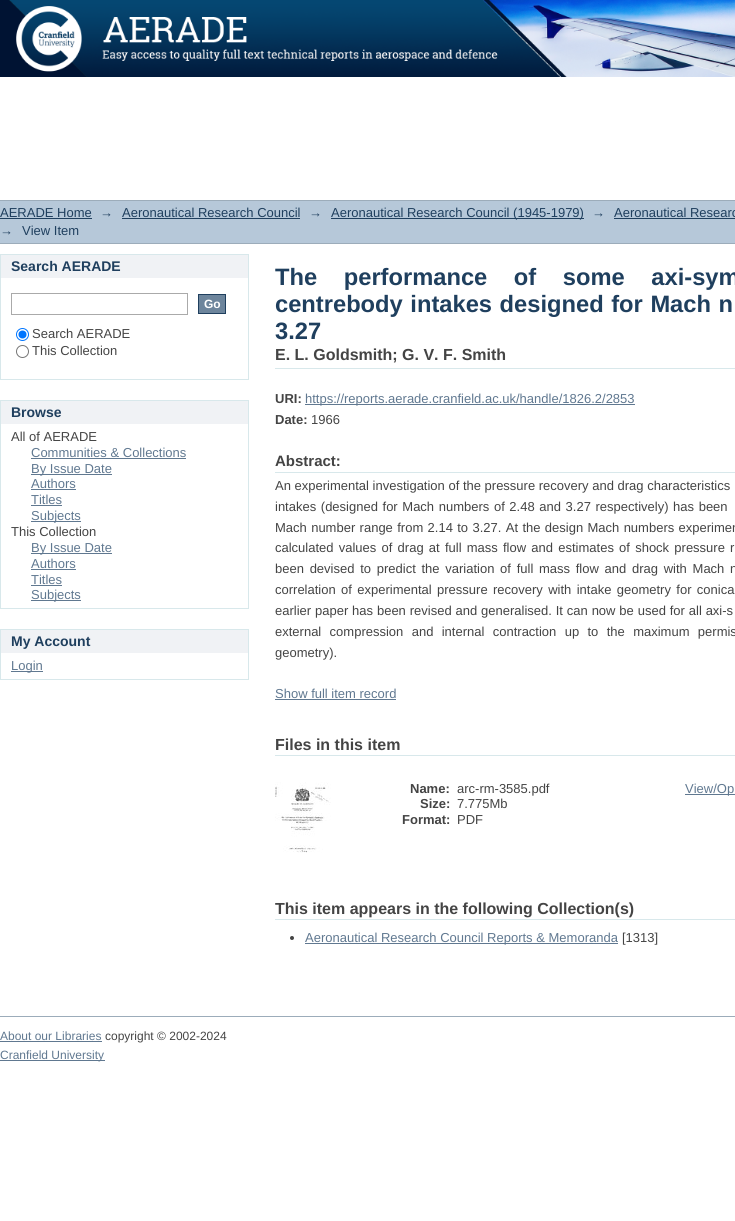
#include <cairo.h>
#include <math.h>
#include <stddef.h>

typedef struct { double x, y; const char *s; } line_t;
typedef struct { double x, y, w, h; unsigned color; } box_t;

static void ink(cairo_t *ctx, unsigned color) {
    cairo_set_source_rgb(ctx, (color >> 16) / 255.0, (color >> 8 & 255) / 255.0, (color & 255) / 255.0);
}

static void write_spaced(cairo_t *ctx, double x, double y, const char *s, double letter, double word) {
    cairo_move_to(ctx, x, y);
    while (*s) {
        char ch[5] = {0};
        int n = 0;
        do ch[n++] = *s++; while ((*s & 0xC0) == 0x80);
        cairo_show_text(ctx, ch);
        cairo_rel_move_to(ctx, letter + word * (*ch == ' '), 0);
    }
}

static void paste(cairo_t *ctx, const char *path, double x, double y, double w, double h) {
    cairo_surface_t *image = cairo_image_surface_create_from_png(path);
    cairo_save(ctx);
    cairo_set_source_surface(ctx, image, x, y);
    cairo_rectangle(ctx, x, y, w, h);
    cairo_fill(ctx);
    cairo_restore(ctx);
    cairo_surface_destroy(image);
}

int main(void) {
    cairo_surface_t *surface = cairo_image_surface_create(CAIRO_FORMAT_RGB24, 735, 1221);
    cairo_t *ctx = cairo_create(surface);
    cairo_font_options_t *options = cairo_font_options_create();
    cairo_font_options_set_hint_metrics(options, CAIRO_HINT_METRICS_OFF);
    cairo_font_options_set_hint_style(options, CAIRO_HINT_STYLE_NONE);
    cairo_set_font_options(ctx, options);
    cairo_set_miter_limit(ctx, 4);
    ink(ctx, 0xFFFFFF);
    cairo_paint(ctx);
    paste(ctx, "media/1.png", 0, 0, 735, 77);
    {
        static const box_t items[] = {
            {0, 201, 735, 42, 0xB6C8D9},
            {0, 200, 735, 1, 0x9CACBA},
            {0, 243, 735, 1, 0x9CACBA},
        };
        for (size_t i = 0; i < sizeof items / sizeof *items; i++) {
            ink(ctx, items[i].color);
            cairo_rectangle(ctx, items[i].x, items[i].y, items[i].w, items[i].h);
            cairo_fill(ctx);
        }
    }
    cairo_select_font_face(ctx, "Liberation Sans", CAIRO_FONT_SLANT_NORMAL, CAIRO_FONT_WEIGHT_NORMAL);
    cairo_set_font_size(ctx, 13);
    ink(ctx, 0x1F3F5E);
    cairo_move_to(ctx, 0, 217);
    cairo_show_text(ctx, "AERADE Home");
    cairo_rectangle(ctx, 0, 218, 92, 1);
    cairo_fill(ctx);
    cairo_move_to(ctx, 100, 217);
    cairo_show_text(ctx, "→");
    cairo_move_to(ctx, 122, 217);
    cairo_show_text(ctx, "Aeronautical Research Council");
    cairo_rectangle(ctx, 122, 218, 178, 1);
    cairo_fill(ctx);
    cairo_move_to(ctx, 309, 217);
    cairo_show_text(ctx, "→");
    cairo_rectangle(ctx, 331, 218, 253, 1);
    cairo_fill(ctx);
    {
        static const line_t items[] = {
            {331, 217, "Aeronautical Research Council (1945-1979)"},
            {592, 217, "→"},
            {614, 217, "Aeronautical Researc"},
        };
        for (size_t i = 0; i < sizeof items / sizeof *items; i++) {
            cairo_move_to(ctx, items[i].x, items[i].y);
            cairo_show_text(ctx, items[i].s);
        }
    }
    cairo_rectangle(ctx, 614, 218, 121, 1);
    cairo_fill(ctx);
    cairo_move_to(ctx, 0, 235);
    cairo_show_text(ctx, "→");
    cairo_move_to(ctx, 22, 235);
    cairo_show_text(ctx, "View Item");
    {
        static const box_t items[] = {
            {1, 255, 247, 23, 0xF0F2F5},
            {0, 254, 249, 1, 0xD8E8EB},
            {248, 254, 1, 126, 0xD8E8EB},
            {0, 254, 1, 24, 0xD8E8EB},
        };
        for (size_t i = 0; i < sizeof items / sizeof *items; i++) {
            ink(ctx, items[i].color);
            cairo_rectangle(ctx, items[i].x, items[i].y, items[i].w, items[i].h);
            cairo_fill(ctx);
        }
    }
    cairo_select_font_face(ctx, "Liberation Sans", CAIRO_FONT_SLANT_NORMAL, CAIRO_FONT_WEIGHT_BOLD);
    cairo_set_font_size(ctx, 14);
    ink(ctx, 0x1F3F5E);
    cairo_move_to(ctx, 11, 271);
    cairo_show_text(ctx, "Search AERADE");
    ink(ctx, 0xD8E8EB);
    cairo_rectangle(ctx, 0, 379, 249, 1);
    cairo_fill(ctx);
    cairo_rectangle(ctx, 0, 278, 1, 102);
    cairo_fill(ctx);
    cairo_rectangle(ctx, 11.5, 293.5, 176, 21);
    ink(ctx, 0xAAAAAA);
    cairo_set_line_width(ctx, 1);
    cairo_stroke(ctx);
    ink(ctx, 0x6D859C);
    cairo_rectangle(ctx, 198.5, 294.5, 27, 19);
    cairo_fill_preserve(ctx);
    ink(ctx, 0x1F3F5E);
    cairo_stroke(ctx);
    cairo_set_font_size(ctx, 12);
    ink(ctx, 0xFFFFFF);
    cairo_move_to(ctx, 204, 308);
    cairo_show_text(ctx, "Go");
    cairo_new_path(ctx);
    cairo_arc(ctx, 22.5, 334.5, 6, 0, 2 * M_PI);
    ink(ctx, 0x0075FF);
    cairo_stroke(ctx);
    cairo_arc(ctx, 22.5, 334.5, 4, 0, 2 * M_PI);
    cairo_fill(ctx);
    cairo_select_font_face(ctx, "Liberation Sans", CAIRO_FONT_SLANT_NORMAL, CAIRO_FONT_WEIGHT_NORMAL);
    cairo_set_font_size(ctx, 13);
    ink(ctx, 0x444444);
    cairo_move_to(ctx, 32, 338);
    cairo_show_text(ctx, "Search AERADE");
    cairo_new_path(ctx);
    cairo_arc(ctx, 22.5, 351.5, 6, 0, 2 * M_PI);
    ink(ctx, 0x767676);
    cairo_stroke(ctx);
    ink(ctx, 0x444444);
    cairo_move_to(ctx, 32, 355);
    cairo_show_text(ctx, "This Collection");
    {
        static const box_t items[] = {
            {1, 401, 247, 23, 0xF0F2F5},
            {0, 400, 249, 1, 0xD8E8EB},
            {248, 400, 1, 209, 0xD8E8EB},
            {0, 400, 1, 24, 0xD8E8EB},
        };
        for (size_t i = 0; i < sizeof items / sizeof *items; i++) {
            ink(ctx, items[i].color);
            cairo_rectangle(ctx, items[i].x, items[i].y, items[i].w, items[i].h);
            cairo_fill(ctx);
        }
    }
    cairo_select_font_face(ctx, "Liberation Sans", CAIRO_FONT_SLANT_NORMAL, CAIRO_FONT_WEIGHT_BOLD);
    cairo_set_font_size(ctx, 14);
    ink(ctx, 0x1F3F5E);
    cairo_move_to(ctx, 11, 417);
    cairo_show_text(ctx, "Browse");
    ink(ctx, 0xD8E8EB);
    cairo_rectangle(ctx, 0, 608, 249, 1);
    cairo_fill(ctx);
    cairo_rectangle(ctx, 0, 424, 1, 185);
    cairo_fill(ctx);
    cairo_select_font_face(ctx, "Liberation Sans", CAIRO_FONT_SLANT_NORMAL, CAIRO_FONT_WEIGHT_NORMAL);
    cairo_set_font_size(ctx, 13);
    ink(ctx, 0x444444);
    cairo_move_to(ctx, 11, 441);
    cairo_show_text(ctx, "All of AERADE");
    ink(ctx, 0x607890);
    cairo_move_to(ctx, 31, 457);
    cairo_show_text(ctx, "Communities & Collections");
    cairo_rectangle(ctx, 31, 458, 155, 1);
    cairo_fill(ctx);
    cairo_rectangle(ctx, 31, 474, 81, 1);
    cairo_fill(ctx);
    cairo_move_to(ctx, 31, 473);
    cairo_show_text(ctx, "By Issue Date");
    cairo_move_to(ctx, 31, 488);
    cairo_show_text(ctx, "Authors");
    cairo_rectangle(ctx, 31, 489, 45, 1);
    cairo_fill(ctx);
    cairo_move_to(ctx, 31, 504);
    cairo_show_text(ctx, "Titles");
    cairo_rectangle(ctx, 31, 505, 31, 1);
    cairo_fill(ctx);
    cairo_rectangle(ctx, 31, 521, 50, 1);
    cairo_fill(ctx);
    cairo_move_to(ctx, 31, 520);
    cairo_show_text(ctx, "Subjects");
    ink(ctx, 0x444444);
    cairo_move_to(ctx, 11, 536);
    cairo_show_text(ctx, "This Collection");
    ink(ctx, 0x607890);
    cairo_rectangle(ctx, 31, 553, 81, 1);
    cairo_fill(ctx);
    cairo_move_to(ctx, 31, 552);
    cairo_show_text(ctx, "By Issue Date");
    cairo_move_to(ctx, 31, 568);
    cairo_show_text(ctx, "Authors");
    cairo_rectangle(ctx, 31, 569, 45, 1);
    cairo_fill(ctx);
    cairo_move_to(ctx, 31, 584);
    cairo_show_text(ctx, "Titles");
    cairo_rectangle(ctx, 31, 585, 31, 1);
    cairo_fill(ctx);
    cairo_rectangle(ctx, 31, 600, 50, 1);
    cairo_fill(ctx);
    cairo_move_to(ctx, 31, 599);
    cairo_show_text(ctx, "Subjects");
    {
        static const box_t items[] = {
            {1, 630, 247, 23, 0xF0F2F5},
            {0, 629, 249, 1, 0xD8E8EB},
            {248, 629, 1, 51, 0xD8E8EB},
            {0, 629, 1, 24, 0xD8E8EB},
        };
        for (size_t i = 0; i < sizeof items / sizeof *items; i++) {
            ink(ctx, items[i].color);
            cairo_rectangle(ctx, items[i].x, items[i].y, items[i].w, items[i].h);
            cairo_fill(ctx);
        }
    }
    cairo_select_font_face(ctx, "Liberation Sans", CAIRO_FONT_SLANT_NORMAL, CAIRO_FONT_WEIGHT_BOLD);
    cairo_set_font_size(ctx, 14);
    ink(ctx, 0x1F3F5E);
    cairo_move_to(ctx, 11, 646);
    cairo_show_text(ctx, "My Account");
    {
        static const box_t items[] = {
            {0, 679, 249, 1, 0xD8E8EB},
            {0, 653, 1, 27, 0xD8E8EB},
            {11, 671, 32, 1, 0x607890},
        };
        for (size_t i = 0; i < sizeof items / sizeof *items; i++) {
            ink(ctx, items[i].color);
            cairo_rectangle(ctx, items[i].x, items[i].y, items[i].w, items[i].h);
            cairo_fill(ctx);
        }
    }
    cairo_select_font_face(ctx, "Liberation Sans", CAIRO_FONT_SLANT_NORMAL, CAIRO_FONT_WEIGHT_NORMAL);
    cairo_set_font_size(ctx, 13);
    cairo_move_to(ctx, 11, 670);
    cairo_show_text(ctx, "Login");
    cairo_select_font_face(ctx, "Liberation Sans", CAIRO_FONT_SLANT_NORMAL, CAIRO_FONT_WEIGHT_BOLD);
    cairo_set_font_size(ctx, 23.7);
    ink(ctx, 0x1F3F5E);
    write_spaced(ctx, 275, 285, "The performance of some axi-sym", 0, 20);
    write_spaced(ctx, 275, 312, "centrebody intakes designed for Mach n", 0, 1);
    cairo_move_to(ctx, 275, 339);
    cairo_show_text(ctx, "3.27");
    ink(ctx, 0xD8E8EB);
    cairo_rectangle(ctx, 275, 368, 460, 1);
    cairo_fill(ctx);
    cairo_set_font_size(ctx, 16);
    ink(ctx, 0x444444);
    cairo_move_to(ctx, 275, 360);
    cairo_show_text(ctx, "E. L. Goldsmith; G. V. F. Smith");
    cairo_set_font_size(ctx, 13);
    cairo_move_to(ctx, 275, 403);
    cairo_show_text(ctx, "URI:");
    ink(ctx, 0x607890);
    cairo_rectangle(ctx, 305, 404, 330, 1);
    cairo_fill(ctx);
    cairo_select_font_face(ctx, "Liberation Sans", CAIRO_FONT_SLANT_NORMAL, CAIRO_FONT_WEIGHT_NORMAL);
    cairo_move_to(ctx, 305, 403);
    cairo_show_text(ctx, "https://reports.aerade.cranfield.ac.uk/handle/1826.2/2853");
    cairo_select_font_face(ctx, "Liberation Sans", CAIRO_FONT_SLANT_NORMAL, CAIRO_FONT_WEIGHT_BOLD);
    ink(ctx, 0x444444);
    cairo_move_to(ctx, 275, 424);
    cairo_show_text(ctx, "Date:");
    cairo_select_font_face(ctx, "Liberation Sans", CAIRO_FONT_SLANT_NORMAL, CAIRO_FONT_WEIGHT_NORMAL);
    cairo_move_to(ctx, 311, 424);
    cairo_show_text(ctx, "1966");
    ink(ctx, 0xD8E8EB);
    cairo_rectangle(ctx, 275, 472, 460, 1);
    cairo_fill(ctx);
    cairo_select_font_face(ctx, "Liberation Sans", CAIRO_FONT_SLANT_NORMAL, CAIRO_FONT_WEIGHT_BOLD);
    cairo_set_font_size(ctx, 15);
    ink(ctx, 0x444444);
    cairo_move_to(ctx, 275, 466);
    cairo_show_text(ctx, "Abstract:");
    cairo_select_font_face(ctx, "Liberation Sans", CAIRO_FONT_SLANT_NORMAL, CAIRO_FONT_WEIGHT_NORMAL);
    cairo_set_font_size(ctx, 13);
    cairo_move_to(ctx, 275, 490);
    cairo_show_text(ctx, "An experimental investigation of the pressure recovery and drag characteristics");
    write_spaced(ctx, 275, 511, "intakes (designed for Mach numbers of 2.48 and 3.27 respectively) has been", 0, 1);
    write_spaced(ctx, 275, 532, "Mach number range from 2.14 to 3.27. At the design Mach numbers experimen", 0, 0.75);
    write_spaced(ctx, 275, 552, "calculated values of drag at full mass flow and estimates of shock pressure r", 0, 1.6);
    write_spaced(ctx, 275, 573, "been devised to predict the variation of full mass flow and drag with Mach n", 0, 2.1);
    write_spaced(ctx, 275, 594, "correlation of experimental pressure recovery with intake geometry for conica", 0, 1.75);
    write_spaced(ctx, 275, 615, "earlier paper has been revised and generalised. It can now be used for all axi-s", 0, 0.25);
    write_spaced(ctx, 275, 636, "external compression and internal contraction up to the maximum permis", 0, 4.75);
    cairo_move_to(ctx, 275, 657);
    cairo_show_text(ctx, "geometry).");
    ink(ctx, 0x607890);
    cairo_move_to(ctx, 275, 698);
    cairo_show_text(ctx, "Show full item record");
    cairo_rectangle(ctx, 275, 699, 121, 1);
    cairo_fill(ctx);
    ink(ctx, 0xD8E8EB);
    cairo_rectangle(ctx, 275, 755, 460, 1);
    cairo_fill(ctx);
    cairo_select_font_face(ctx, "Liberation Sans", CAIRO_FONT_SLANT_NORMAL, CAIRO_FONT_WEIGHT_BOLD);
    cairo_set_font_size(ctx, 16);
    ink(ctx, 0x444444);
    cairo_move_to(ctx, 275, 750);
    cairo_show_text(ctx, "Files in this item");
    paste(ctx, "media/2.png", 275, 782, 56, 71);
    cairo_set_font_size(ctx, 13);
    cairo_move_to(ctx, 410, 793);
    cairo_show_text(ctx, "Name:");
    cairo_select_font_face(ctx, "Liberation Sans", CAIRO_FONT_SLANT_NORMAL, CAIRO_FONT_WEIGHT_NORMAL);
    cairo_move_to(ctx, 457, 793);
    cairo_show_text(ctx, "arc-rm-3585.pdf");
    cairo_select_font_face(ctx, "Liberation Sans", CAIRO_FONT_SLANT_NORMAL, CAIRO_FONT_WEIGHT_BOLD);
    cairo_move_to(ctx, 420, 808);
    cairo_show_text(ctx, "Size:");
    cairo_select_font_face(ctx, "Liberation Sans", CAIRO_FONT_SLANT_NORMAL, CAIRO_FONT_WEIGHT_NORMAL);
    cairo_move_to(ctx, 457, 808);
    cairo_show_text(ctx, "7.775Mb");
    cairo_select_font_face(ctx, "Liberation Sans", CAIRO_FONT_SLANT_NORMAL, CAIRO_FONT_WEIGHT_BOLD);
    cairo_move_to(ctx, 402, 824);
    cairo_show_text(ctx, "Format:");
    cairo_select_font_face(ctx, "Liberation Sans", CAIRO_FONT_SLANT_NORMAL, CAIRO_FONT_WEIGHT_NORMAL);
    cairo_move_to(ctx, 457, 824);
    cairo_show_text(ctx, "PDF");
    ink(ctx, 0x607890);
    cairo_rectangle(ctx, 685, 794, 50, 1);
    cairo_fill(ctx);
    cairo_move_to(ctx, 685, 793);
    cairo_show_text(ctx, "View/Op");
    ink(ctx, 0xD8E8EB);
    cairo_rectangle(ctx, 275, 919, 460, 1);
    cairo_fill(ctx);
    cairo_select_font_face(ctx, "Liberation Sans", CAIRO_FONT_SLANT_NORMAL, CAIRO_FONT_WEIGHT_BOLD);
    cairo_set_font_size(ctx, 16);
    ink(ctx, 0x444444);
    cairo_move_to(ctx, 275, 914);
    cairo_show_text(ctx, "This item appears in the following Collection(s)");
    cairo_new_path(ctx);
    cairo_arc(ctx, 292, 938, 2, 0, 2 * M_PI);
    cairo_fill(ctx);
    ink(ctx, 0x607890);
    cairo_rectangle(ctx, 305, 943, 313, 1);
    cairo_fill(ctx);
    cairo_select_font_face(ctx, "Liberation Sans", CAIRO_FONT_SLANT_NORMAL, CAIRO_FONT_WEIGHT_NORMAL);
    cairo_set_font_size(ctx, 13);
    cairo_move_to(ctx, 305, 942);
    cairo_show_text(ctx, "Aeronautical Research Council Reports & Memoranda");
    ink(ctx, 0x444444);
    cairo_move_to(ctx, 622, 942);
    cairo_show_text(ctx, "[1313]");
    ink(ctx, 0x9CACBA);
    cairo_rectangle(ctx, 0, 1016, 735, 1);
    cairo_fill(ctx);
    cairo_set_font_size(ctx, 12);
    ink(ctx, 0x607890);
    cairo_move_to(ctx, 0, 1040);
    cairo_show_text(ctx, "About our Libraries");
    cairo_rectangle(ctx, 0, 1041, 102, 1);
    cairo_fill(ctx);
    ink(ctx, 0x444444);
    cairo_move_to(ctx, 105, 1040);
    cairo_show_text(ctx, "copyright © 2002-2024");
    ink(ctx, 0x607890);
    cairo_rectangle(ctx, 0, 1060, 105, 1);
    cairo_fill(ctx);
    cairo_move_to(ctx, 0, 1059);
    cairo_show_text(ctx, "Cranfield University");
    cairo_surface_write_to_png(surface, "image.png");
    cairo_font_options_destroy(options);
    cairo_destroy(ctx);
    cairo_surface_destroy(surface);
    return 0;
}
